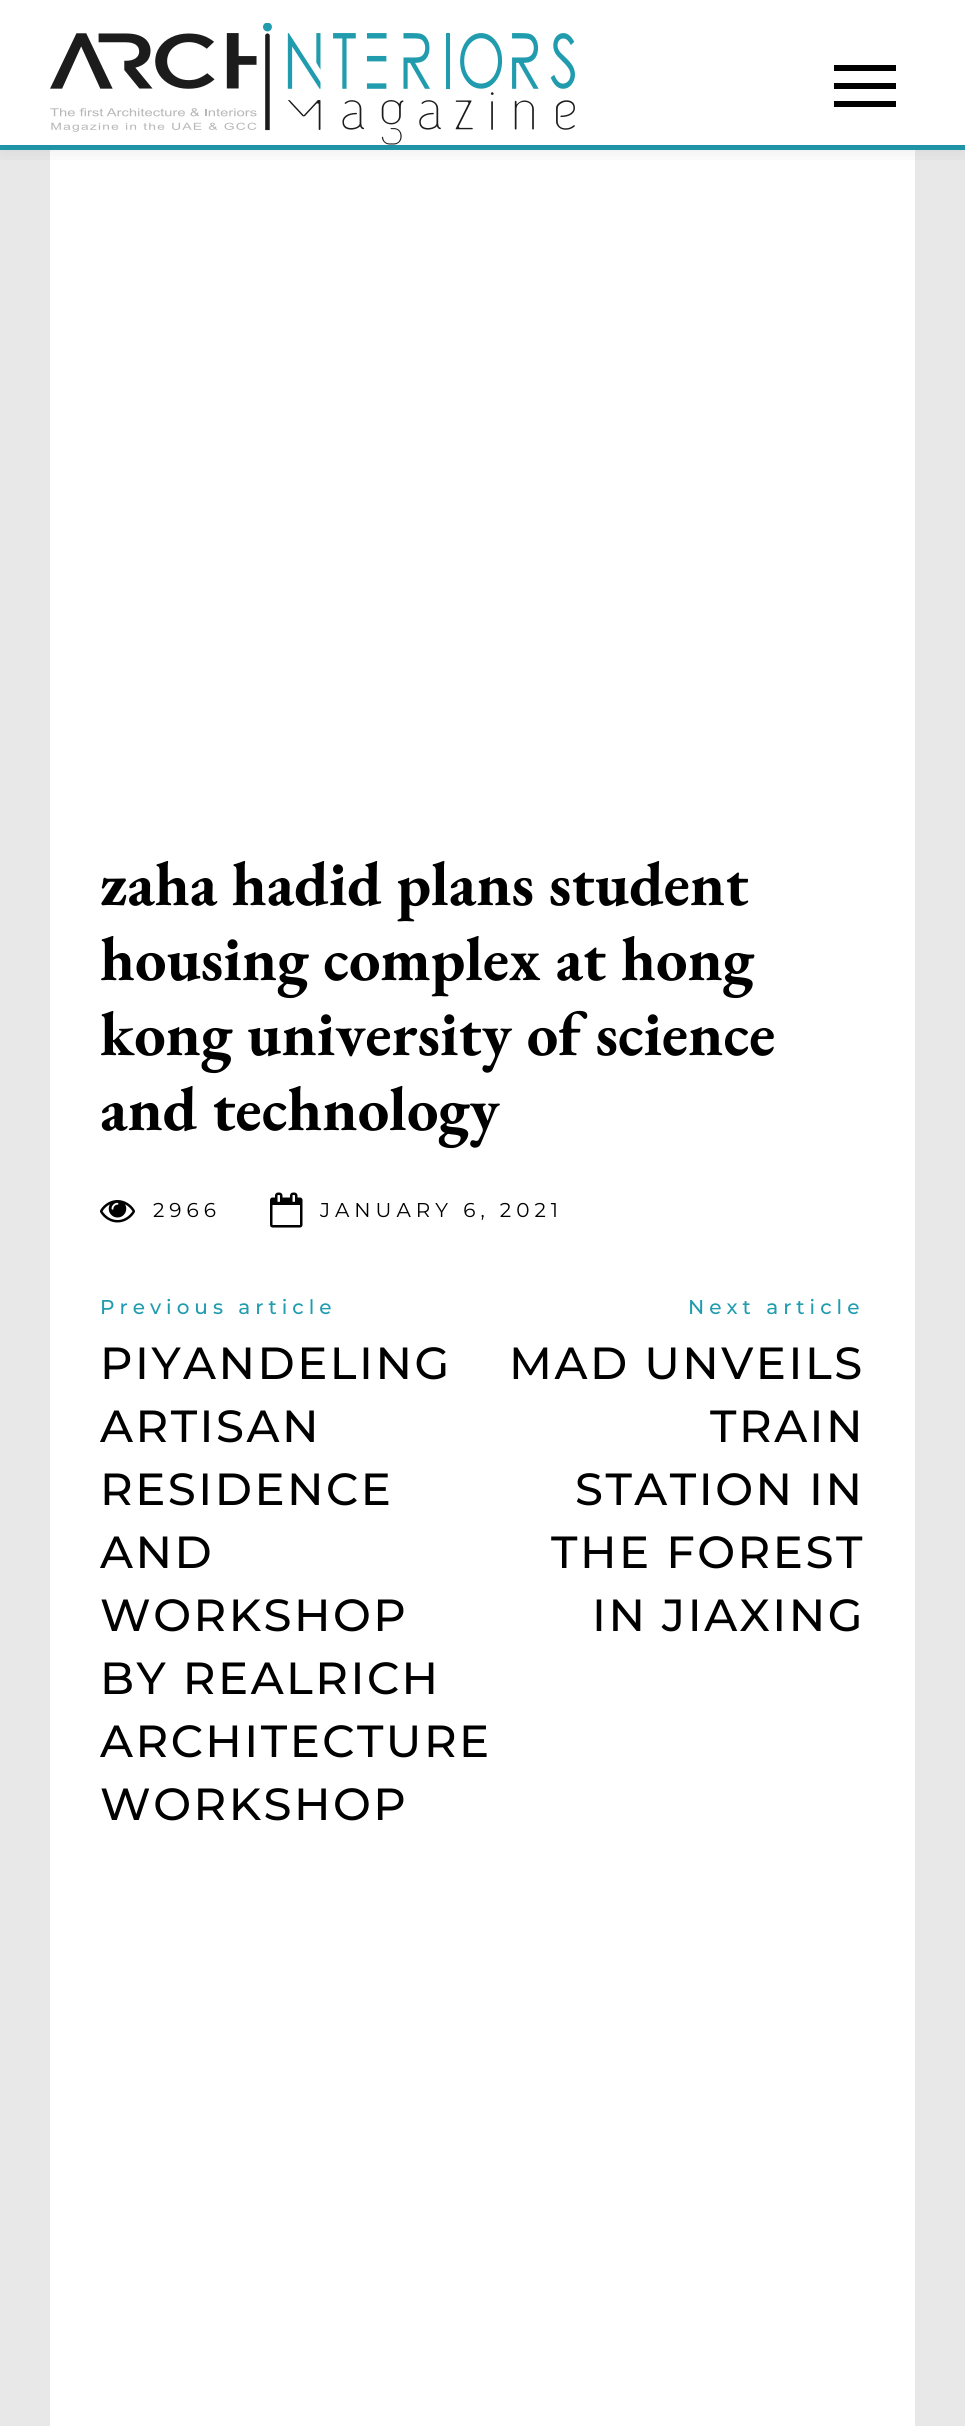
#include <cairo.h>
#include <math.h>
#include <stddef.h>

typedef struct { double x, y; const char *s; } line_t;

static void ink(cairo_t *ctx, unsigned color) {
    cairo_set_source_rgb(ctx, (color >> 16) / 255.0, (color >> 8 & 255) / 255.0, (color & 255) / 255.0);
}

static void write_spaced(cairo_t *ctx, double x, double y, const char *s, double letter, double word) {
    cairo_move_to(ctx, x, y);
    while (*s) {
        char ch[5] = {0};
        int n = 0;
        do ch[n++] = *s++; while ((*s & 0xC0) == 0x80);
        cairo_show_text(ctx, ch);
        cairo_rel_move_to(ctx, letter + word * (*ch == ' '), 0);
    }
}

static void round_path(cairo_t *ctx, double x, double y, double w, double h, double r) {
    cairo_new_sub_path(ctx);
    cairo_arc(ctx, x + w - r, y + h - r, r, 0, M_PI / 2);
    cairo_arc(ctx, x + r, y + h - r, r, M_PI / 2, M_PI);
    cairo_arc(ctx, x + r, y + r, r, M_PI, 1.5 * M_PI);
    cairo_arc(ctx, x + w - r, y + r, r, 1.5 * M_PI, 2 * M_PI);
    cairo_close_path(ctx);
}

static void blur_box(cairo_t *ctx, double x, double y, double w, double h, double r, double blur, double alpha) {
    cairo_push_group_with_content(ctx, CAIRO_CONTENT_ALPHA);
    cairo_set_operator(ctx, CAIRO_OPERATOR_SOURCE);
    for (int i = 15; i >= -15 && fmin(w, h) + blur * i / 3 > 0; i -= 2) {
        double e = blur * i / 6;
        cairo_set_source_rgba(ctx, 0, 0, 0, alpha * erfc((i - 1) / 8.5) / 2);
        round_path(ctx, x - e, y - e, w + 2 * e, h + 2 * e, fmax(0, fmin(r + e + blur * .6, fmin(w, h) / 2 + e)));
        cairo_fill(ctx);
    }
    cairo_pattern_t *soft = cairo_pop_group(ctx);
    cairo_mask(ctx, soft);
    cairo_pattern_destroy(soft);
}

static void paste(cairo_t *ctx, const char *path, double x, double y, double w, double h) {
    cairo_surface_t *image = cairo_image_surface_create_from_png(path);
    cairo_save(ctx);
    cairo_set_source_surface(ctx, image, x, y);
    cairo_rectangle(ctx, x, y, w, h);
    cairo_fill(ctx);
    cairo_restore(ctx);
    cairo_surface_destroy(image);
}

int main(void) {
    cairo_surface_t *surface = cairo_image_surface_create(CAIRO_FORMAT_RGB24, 965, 2426);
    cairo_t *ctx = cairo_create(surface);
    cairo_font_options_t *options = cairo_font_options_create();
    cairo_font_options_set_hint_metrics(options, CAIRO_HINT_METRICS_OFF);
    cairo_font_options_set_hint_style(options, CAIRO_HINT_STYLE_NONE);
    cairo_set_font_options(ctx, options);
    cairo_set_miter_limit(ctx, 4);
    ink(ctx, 0xE8E8E8);
    cairo_paint(ctx);
    ink(ctx, 0x219CAF);
    cairo_rectangle(ctx, 0, 145, 965, 5);
    cairo_fill(ctx);
    ink(ctx, 0xFFFFFF);
    cairo_rectangle(ctx, 0, 0, 965, 145);
    cairo_fill(ctx);
    paste(ctx, "media/1.png", 50, 23, 525, 122);
    ink(ctx, 0x000000);
    cairo_new_path(ctx);
    cairo_move_to(ctx, 896, 71);
    cairo_line_to(ctx, 834, 71);
    cairo_line_to(ctx, 834, 65);
    cairo_line_to(ctx, 896, 65);
    cairo_close_path(ctx);
    cairo_move_to(ctx, 896, 89);
    cairo_line_to(ctx, 834, 89);
    cairo_line_to(ctx, 834, 83);
    cairo_line_to(ctx, 896, 83);
    cairo_close_path(ctx);
    cairo_move_to(ctx, 896, 107);
    cairo_line_to(ctx, 834, 107);
    cairo_line_to(ctx, 834, 101);
    cairo_line_to(ctx, 896, 101);
    cairo_close_path(ctx);
    cairo_fill(ctx);
    ink(ctx, 0xFFFFFF);
    cairo_rectangle(ctx, 50, 150, 865, 2276);
    cairo_fill(ctx);
    cairo_save(ctx);
    cairo_rectangle(ctx, 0, 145, 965, 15);
    cairo_clip(ctx);
    ink(ctx, 0x000000);
    blur_box(ctx, 0, 5, 965, 145, 0, 12.5, 0.09);
    cairo_restore(ctx);
    cairo_select_font_face(ctx, "EB Garamond", CAIRO_FONT_SLANT_NORMAL, CAIRO_FONT_WEIGHT_BOLD);
    cairo_set_font_size(ctx, 62.5);
    ink(ctx, 0x000000);
    {
        static const line_t items[] = {
            {100, 905, "zaha hadid plans student"},
            {100, 980, "housing complex at hong"},
            {100, 1055, "kong university of science"},
            {100, 1130, "and technology"},
        };
        for (size_t i = 0; i < sizeof items / sizeof *items; i++) {
            cairo_move_to(ctx, items[i].x, items[i].y);
            cairo_show_text(ctx, items[i].s);
        }
    }
    paste(ctx, "media/2.png", 100, 1200, 35, 23);
    cairo_select_font_face(ctx, "Montserrat", CAIRO_FONT_SLANT_NORMAL, CAIRO_FONT_WEIGHT_NORMAL);
    cairo_set_font_size(ctx, 20);
    write_spaced(ctx, 153, 1217, "2966", 5, 0);
    paste(ctx, "media/3.png", 270, 1192, 33, 36);
    write_spaced(ctx, 320, 1217, "JANUARY 6, 2021", 5, 0);
    cairo_select_font_face(ctx, "Montserrat Medium", CAIRO_FONT_SLANT_NORMAL, CAIRO_FONT_WEIGHT_NORMAL);
    ink(ctx, 0x219CAF);
    write_spaced(ctx, 100, 1314, "Previous article", 5, 0);
    cairo_set_font_size(ctx, 45);
    ink(ctx, 0x000000);
    {
        static const line_t items[] = {
            {100, 1379, "PIYANDELING"},
            {100, 1442, "ARTISAN"},
            {100, 1505, "RESIDENCE"},
            {100, 1568, "AND"},
            {100, 1631, "WORKSHOP"},
            {100, 1694, "BY REALRICH"},
            {100, 1757, "ARCHITECTURE"},
            {100, 1820, "WORKSHOP"},
        };
        for (size_t i = 0; i < sizeof items / sizeof *items; i++) {
            write_spaced(ctx, items[i].x, items[i].y, items[i].s, 2.5, 0);
        }
    }
    cairo_set_font_size(ctx, 20);
    ink(ctx, 0x219CAF);
    write_spaced(ctx, 688, 1314, "Next article", 5, 0);
    cairo_set_font_size(ctx, 45);
    ink(ctx, 0x000000);
    {
        static const line_t items[] = {
            {509, 1379, "MAD UNVEILS"},
            {710, 1442, "TRAIN"},
            {575, 1505, "STATION IN"},
            {551, 1568, "THE FOREST"},
            {592, 1631, "IN JIAXING"},
        };
        for (size_t i = 0; i < sizeof items / sizeof *items; i++) {
            write_spaced(ctx, items[i].x, items[i].y, items[i].s, 2.5, 0);
        }
    }
    cairo_surface_write_to_png(surface, "image.png");
    cairo_font_options_destroy(options);
    cairo_destroy(ctx);
    cairo_surface_destroy(surface);
    return 0;
}
